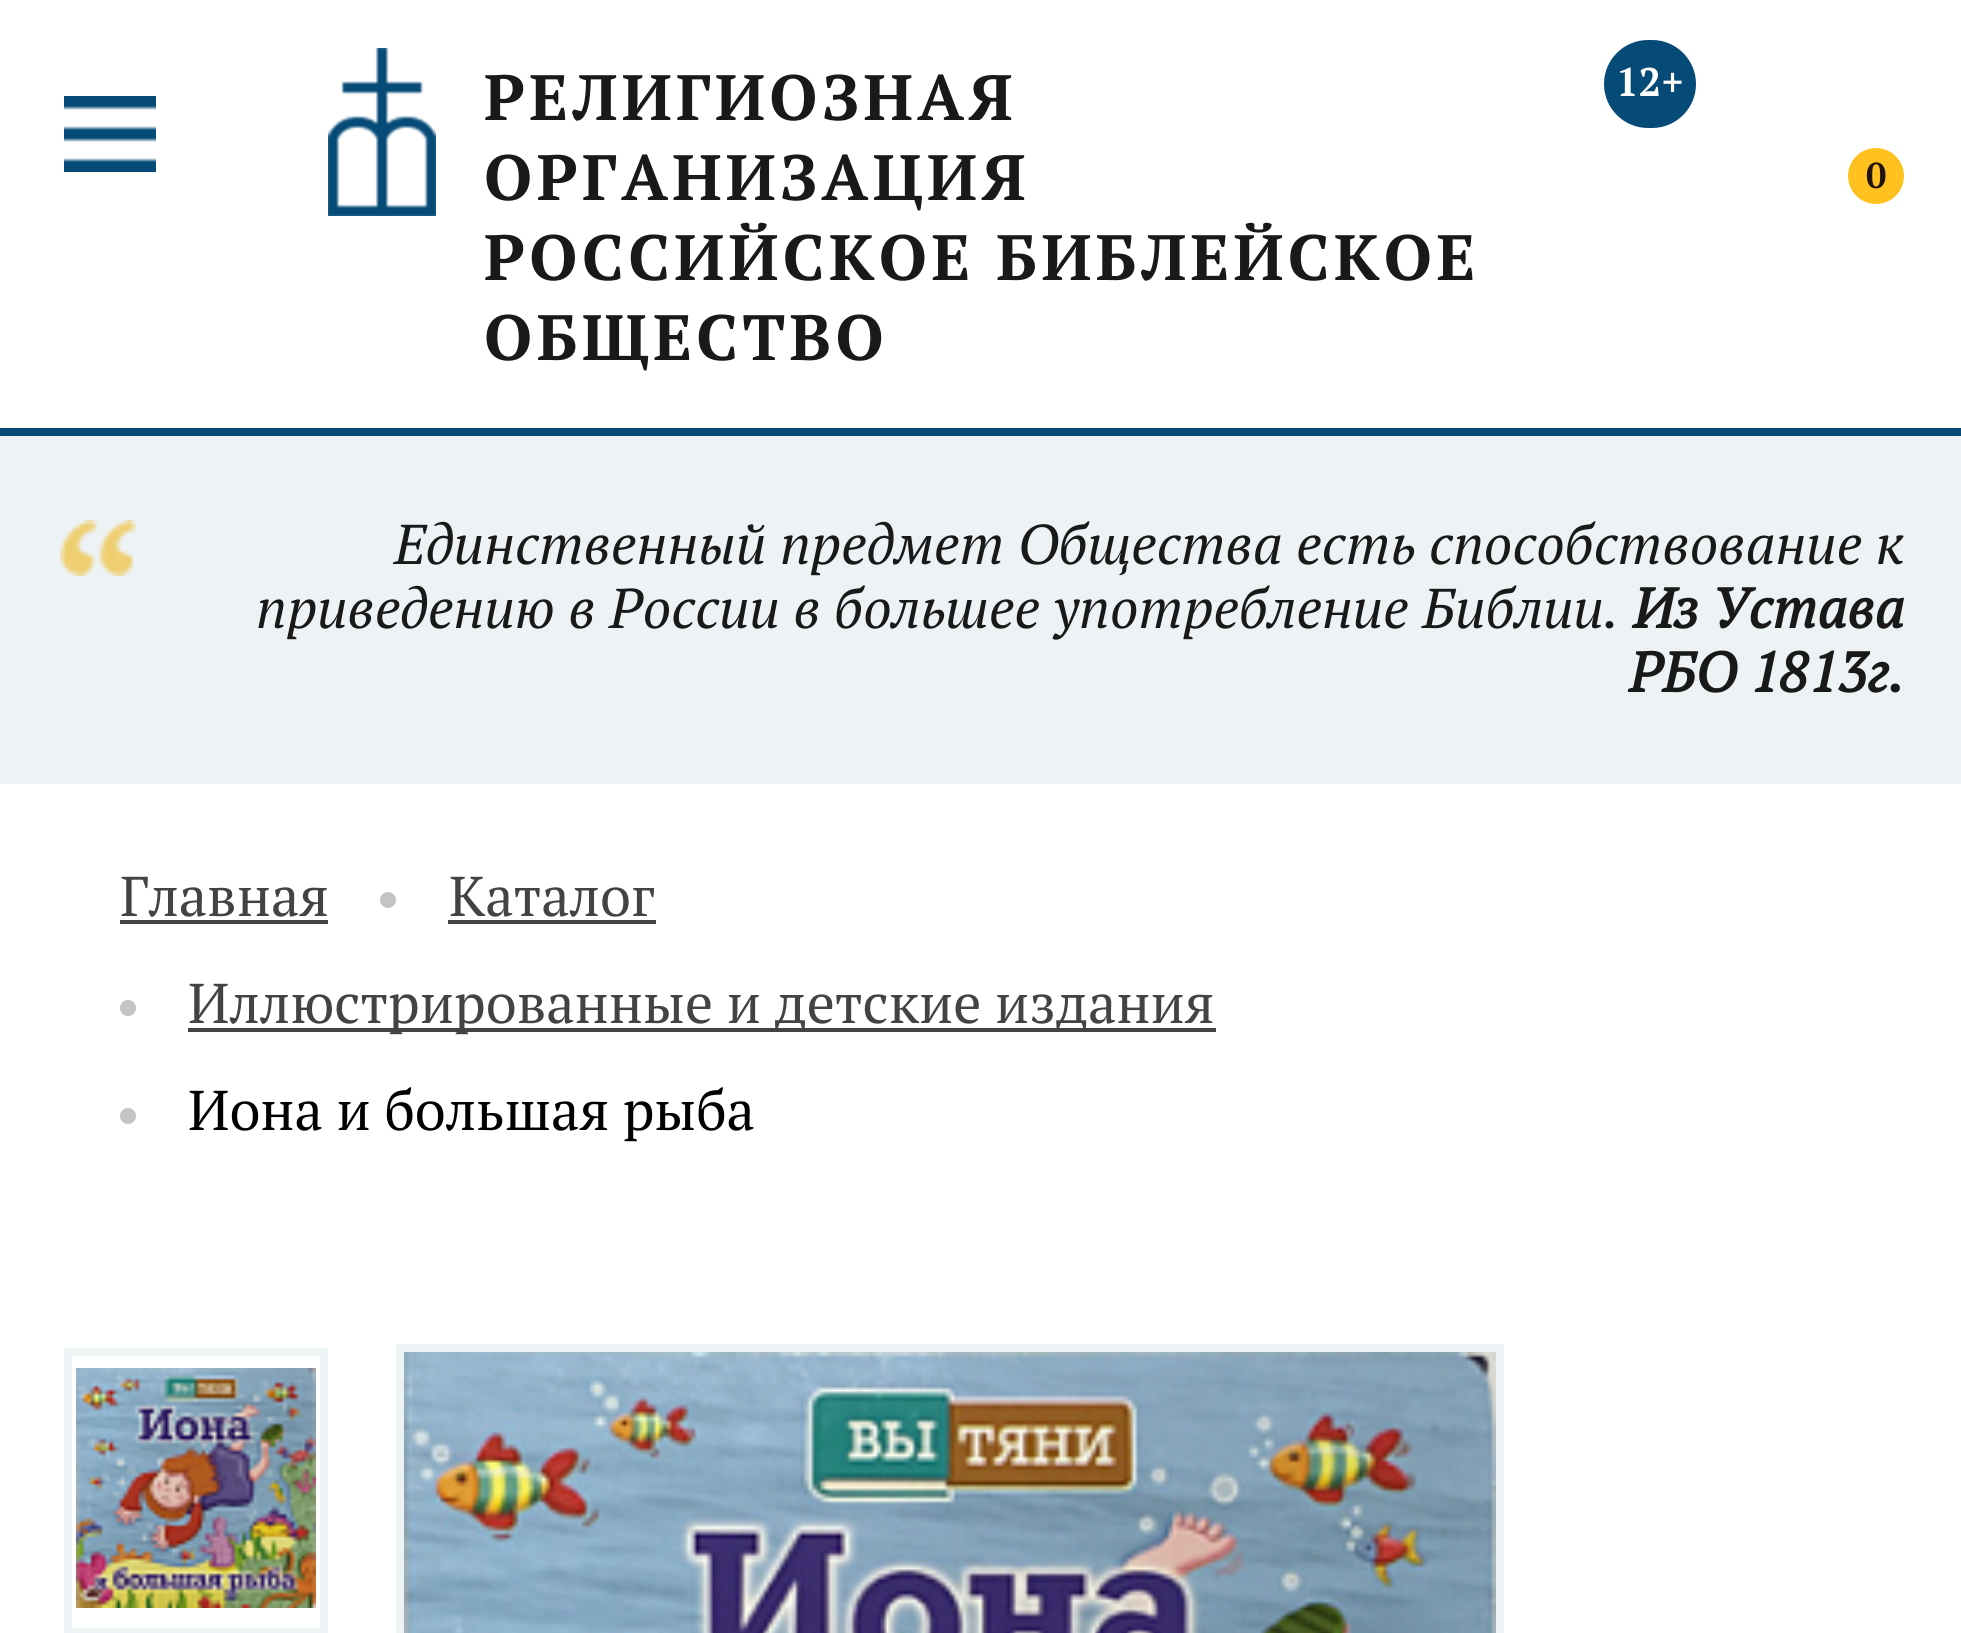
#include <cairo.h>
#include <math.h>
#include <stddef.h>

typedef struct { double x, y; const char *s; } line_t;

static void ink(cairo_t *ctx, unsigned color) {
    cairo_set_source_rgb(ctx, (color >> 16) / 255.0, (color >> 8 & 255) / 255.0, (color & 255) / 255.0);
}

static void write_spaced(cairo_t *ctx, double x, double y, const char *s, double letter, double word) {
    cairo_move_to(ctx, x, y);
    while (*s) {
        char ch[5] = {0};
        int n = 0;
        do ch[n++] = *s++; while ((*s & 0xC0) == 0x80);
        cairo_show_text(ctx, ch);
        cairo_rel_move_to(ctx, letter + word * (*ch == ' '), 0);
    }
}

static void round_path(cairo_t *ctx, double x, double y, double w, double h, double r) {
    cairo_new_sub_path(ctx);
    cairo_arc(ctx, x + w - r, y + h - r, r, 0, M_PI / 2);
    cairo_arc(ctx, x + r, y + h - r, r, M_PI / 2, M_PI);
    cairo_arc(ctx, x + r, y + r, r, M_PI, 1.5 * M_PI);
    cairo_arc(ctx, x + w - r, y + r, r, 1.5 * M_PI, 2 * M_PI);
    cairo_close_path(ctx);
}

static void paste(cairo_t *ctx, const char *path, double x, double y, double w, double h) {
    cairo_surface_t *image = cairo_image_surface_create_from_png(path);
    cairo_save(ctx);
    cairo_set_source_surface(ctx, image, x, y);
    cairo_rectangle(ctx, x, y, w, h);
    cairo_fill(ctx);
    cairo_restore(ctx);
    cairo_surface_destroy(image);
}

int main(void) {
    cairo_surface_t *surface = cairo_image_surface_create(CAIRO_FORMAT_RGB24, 1961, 1633);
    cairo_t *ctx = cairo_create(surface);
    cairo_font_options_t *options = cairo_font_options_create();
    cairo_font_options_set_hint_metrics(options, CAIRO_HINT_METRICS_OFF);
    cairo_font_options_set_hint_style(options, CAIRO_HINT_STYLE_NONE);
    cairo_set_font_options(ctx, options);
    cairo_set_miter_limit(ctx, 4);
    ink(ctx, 0xFFFFFF);
    cairo_paint(ctx);
    paste(ctx, "media/1.png", 64, 96, 92, 76);
    paste(ctx, "media/2.png", 328, 48, 108, 168);
    cairo_select_font_face(ctx, "PT Serif", CAIRO_FONT_SLANT_NORMAL, CAIRO_FONT_WEIGHT_BOLD);
    cairo_set_font_size(ctx, 64);
    ink(ctx, 0x191919);
    {
        static const line_t items[] = {
            {484, 120, "РЕЛИГИОЗНАЯ"},
            {484, 200, "ОРГАНИЗАЦИЯ"},
            {484, 280, "РОССИЙСКОЕ БИБЛЕЙСКОЕ"},
            {484, 360, "ОБЩЕСТВО"},
        };
        for (size_t i = 0; i < sizeof items / sizeof *items; i++) {
            write_spaced(ctx, items[i].x, items[i].y, items[i].s, 4.4, 0);
        }
    }
    ink(ctx, 0x064B77);
    round_path(ctx, 1604, 40, 92, 88, 44);
    cairo_fill(ctx);
    cairo_set_font_size(ctx, 40);
    ink(ctx, 0xFFFFFF);
    cairo_move_to(ctx, 1616, 96);
    cairo_show_text(ctx, "12+");
    ink(ctx, 0xFFC120);
    cairo_new_path(ctx);
    cairo_arc(ctx, 1876, 176, 28, 0, 2 * M_PI);
    cairo_fill(ctx);
    cairo_set_font_size(ctx, 36);
    ink(ctx, 0x211310);
    cairo_move_to(ctx, 1866, 188);
    cairo_show_text(ctx, "0");
    ink(ctx, 0xEDF2F5);
    cairo_rectangle(ctx, 0, 436, 1961, 348);
    cairo_fill(ctx);
    ink(ctx, 0x064B77);
    cairo_rectangle(ctx, 0, 428, 1961, 8);
    cairo_fill(ctx);
    paste(ctx, "media/3.png", 60, 520, 76, 56);
    cairo_select_font_face(ctx, "PT Serif", CAIRO_FONT_SLANT_ITALIC, CAIRO_FONT_WEIGHT_NORMAL);
    cairo_set_font_size(ctx, 56);
    ink(ctx, 0x191919);
    cairo_move_to(ctx, 394, 564);
    cairo_show_text(ctx, "Единственный предмет Общества есть способствование к");
    cairo_move_to(ctx, 256, 628);
    cairo_show_text(ctx, "приведению в России в большее употребление Библии.");
    cairo_select_font_face(ctx, "PT Serif", CAIRO_FONT_SLANT_ITALIC, CAIRO_FONT_WEIGHT_BOLD);
    cairo_move_to(ctx, 1633, 628);
    cairo_show_text(ctx, "Из Устава");
    cairo_move_to(ctx, 1629, 692);
    cairo_show_text(ctx, "РБО 1813г.");
    cairo_select_font_face(ctx, "PT Serif", CAIRO_FONT_SLANT_NORMAL, CAIRO_FONT_WEIGHT_NORMAL);
    ink(ctx, 0x434343);
    cairo_move_to(ctx, 120, 916);
    cairo_show_text(ctx, "Главная");
    cairo_rectangle(ctx, 120, 920, 208, 4);
    cairo_fill(ctx);
    ink(ctx, 0xC4C4C4);
    cairo_arc(ctx, 388, 900, 8, 0, 2 * M_PI);
    cairo_fill(ctx);
    ink(ctx, 0x434343);
    cairo_move_to(ctx, 449, 916);
    cairo_show_text(ctx, "Каталог");
    cairo_rectangle(ctx, 448, 920, 208, 4);
    cairo_fill(ctx);
    ink(ctx, 0xC4C4C4);
    cairo_arc(ctx, 128, 1008, 8, 0, 2 * M_PI);
    cairo_fill(ctx);
    ink(ctx, 0x434343);
    cairo_rectangle(ctx, 188, 1028, 1028, 4);
    cairo_fill(ctx);
    cairo_move_to(ctx, 188, 1023);
    cairo_show_text(ctx, "Иллюстрированные и детские издания");
    ink(ctx, 0xC4C4C4);
    cairo_new_path(ctx);
    cairo_arc(ctx, 128, 1116, 8, 0, 2 * M_PI);
    cairo_fill(ctx);
    ink(ctx, 0x000000);
    cairo_move_to(ctx, 188, 1130);
    cairo_show_text(ctx, "Иона и большая рыба");
    cairo_rectangle(ctx, 68, 1352, 256, 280);
    ink(ctx, 0xEDF2F5);
    cairo_set_line_width(ctx, 8);
    cairo_stroke(ctx);
    paste(ctx, "media/4.png", 76, 1368, 240, 240);
    cairo_rectangle(ctx, 400, 1348, 1100, 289);
    cairo_stroke(ctx);
    paste(ctx, "media/5.png", 404, 1352, 1092, 281);
    cairo_surface_write_to_png(surface, "image.png");
    cairo_font_options_destroy(options);
    cairo_destroy(ctx);
    cairo_surface_destroy(surface);
    return 0;
}
